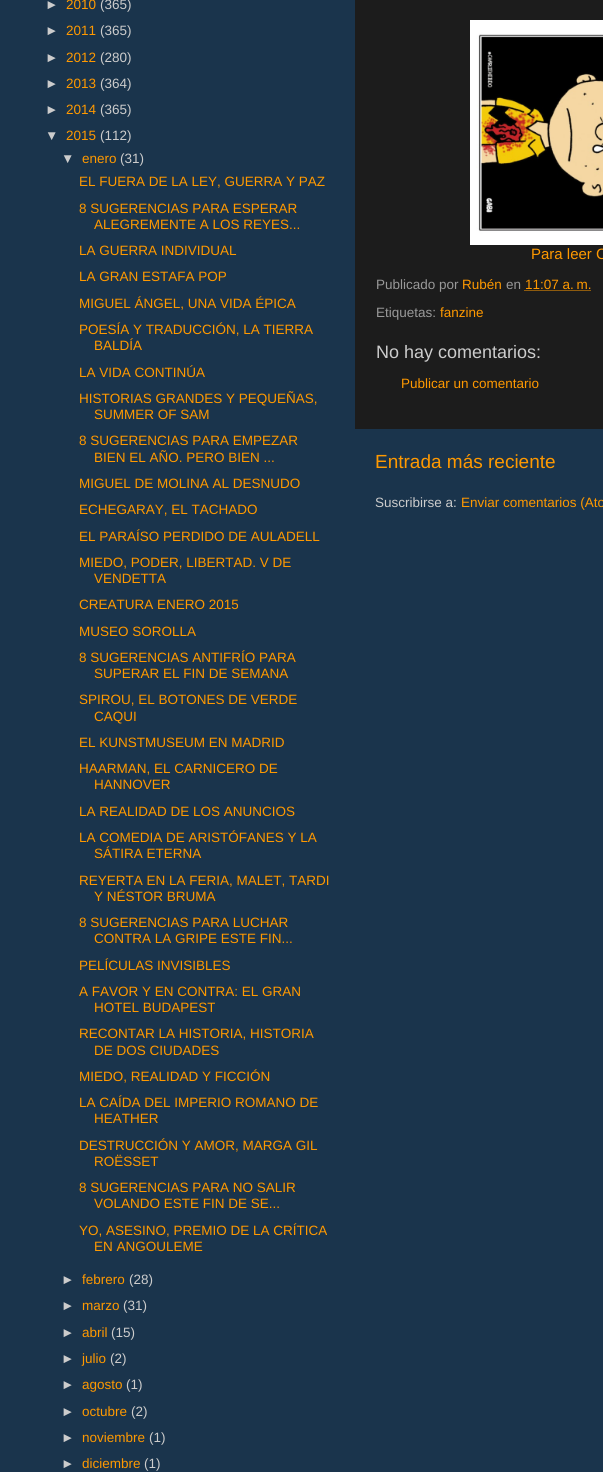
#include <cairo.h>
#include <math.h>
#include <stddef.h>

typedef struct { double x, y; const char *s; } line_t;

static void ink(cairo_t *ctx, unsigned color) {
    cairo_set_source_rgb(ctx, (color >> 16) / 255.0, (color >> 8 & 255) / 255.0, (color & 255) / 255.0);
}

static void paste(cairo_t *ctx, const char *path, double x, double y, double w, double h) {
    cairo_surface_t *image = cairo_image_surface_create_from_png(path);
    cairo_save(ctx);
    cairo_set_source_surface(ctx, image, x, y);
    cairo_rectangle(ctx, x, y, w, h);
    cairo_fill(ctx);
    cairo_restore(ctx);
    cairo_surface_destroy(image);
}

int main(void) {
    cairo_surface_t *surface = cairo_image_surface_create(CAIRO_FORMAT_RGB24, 603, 1472);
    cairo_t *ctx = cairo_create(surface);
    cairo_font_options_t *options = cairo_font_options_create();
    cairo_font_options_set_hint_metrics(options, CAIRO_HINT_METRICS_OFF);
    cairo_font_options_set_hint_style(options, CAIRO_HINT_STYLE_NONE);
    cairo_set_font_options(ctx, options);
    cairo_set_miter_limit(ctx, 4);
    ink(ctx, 0x1A344C);
    cairo_paint(ctx);
    cairo_select_font_face(ctx, "Liberation Sans", CAIRO_FONT_SLANT_NORMAL, CAIRO_FONT_WEIGHT_NORMAL);
    cairo_set_font_size(ctx, 13.5);
    ink(ctx, 0xCCCCCC);
    cairo_move_to(ctx, 45, 9);
    cairo_show_text(ctx, "►");
    ink(ctx, 0xFF9900);
    cairo_move_to(ctx, 66, 9);
    cairo_show_text(ctx, "2010");
    ink(ctx, 0xCCCCCC);
    cairo_move_to(ctx, 100, 9);
    cairo_show_text(ctx, "(365)");
    cairo_move_to(ctx, 45, 35);
    cairo_show_text(ctx, "►");
    ink(ctx, 0xFF9900);
    cairo_move_to(ctx, 66, 35);
    cairo_show_text(ctx, "2011");
    ink(ctx, 0xCCCCCC);
    cairo_move_to(ctx, 100, 35);
    cairo_show_text(ctx, "(365)");
    cairo_move_to(ctx, 45, 62);
    cairo_show_text(ctx, "►");
    ink(ctx, 0xFF9900);
    cairo_move_to(ctx, 66, 62);
    cairo_show_text(ctx, "2012");
    ink(ctx, 0xCCCCCC);
    cairo_move_to(ctx, 100, 62);
    cairo_show_text(ctx, "(280)");
    cairo_move_to(ctx, 45, 88);
    cairo_show_text(ctx, "►");
    ink(ctx, 0xFF9900);
    cairo_move_to(ctx, 66, 88);
    cairo_show_text(ctx, "2013");
    ink(ctx, 0xCCCCCC);
    cairo_move_to(ctx, 100, 88);
    cairo_show_text(ctx, "(364)");
    cairo_move_to(ctx, 45, 114);
    cairo_show_text(ctx, "►");
    ink(ctx, 0xFF9900);
    cairo_move_to(ctx, 66, 114);
    cairo_show_text(ctx, "2014");
    ink(ctx, 0xCCCCCC);
    cairo_move_to(ctx, 100, 114);
    cairo_show_text(ctx, "(365)");
    cairo_move_to(ctx, 45, 140);
    cairo_show_text(ctx, "▼");
    ink(ctx, 0xFF9900);
    cairo_move_to(ctx, 66, 140);
    cairo_show_text(ctx, "2015");
    ink(ctx, 0xCCCCCC);
    cairo_move_to(ctx, 100, 140);
    cairo_show_text(ctx, "(112)");
    cairo_move_to(ctx, 61, 163);
    cairo_show_text(ctx, "▼");
    ink(ctx, 0xFF9900);
    cairo_move_to(ctx, 82, 163);
    cairo_show_text(ctx, "enero");
    ink(ctx, 0xCCCCCC);
    cairo_move_to(ctx, 120, 163);
    cairo_show_text(ctx, "(31)");
    ink(ctx, 0xFF9900);
    {
        static const line_t items[] = {
            {79, 186, "EL FUERA DE LA LEY, GUERRA Y PAZ"},
            {79, 213, "8 SUGERENCIAS PARA ESPERAR"},
            {94, 229, "ALEGREMENTE A LOS REYES..."},
            {79, 255, "LA GUERRA INDIVIDUAL"},
            {79, 281, "LA GRAN ESTAFA POP"},
            {79, 308, "MIGUEL ÁNGEL, UNA VIDA ÉPICA"},
            {79, 334, "POESÍA Y TRADUCCIÓN, LA TIERRA"},
            {94, 350, "BALDÍA"},
            {79, 377, "LA VIDA CONTINÚA"},
            {79, 403, "HISTORIAS GRANDES Y PEQUEÑAS,"},
            {94, 419, "SUMMER OF SAM"},
            {79, 445, "8 SUGERENCIAS PARA EMPEZAR"},
            {94, 462, "BIEN EL AÑO. PERO BIEN ..."},
            {79, 488, "MIGUEL DE MOLINA AL DESNUDO"},
            {79, 514, "ECHEGARAY, EL TACHADO"},
            {79, 541, "EL PARAÍSO PERDIDO DE AULADELL"},
            {79, 567, "MIEDO, PODER, LIBERTAD. V DE"},
            {94, 583, "VENDETTA"},
            {79, 609, "CREATURA ENERO 2015"},
            {79, 636, "MUSEO SOROLLA"},
            {79, 662, "8 SUGERENCIAS ANTIFRÍO PARA"},
            {94, 678, "SUPERAR EL FIN DE SEMANA"},
            {79, 704, "SPIROU, EL BOTONES DE VERDE"},
            {94, 721, "CAQUI"},
            {79, 747, "EL KUNSTMUSEUM EN MADRID"},
            {79, 773, "HAARMAN, EL CARNICERO DE"},
            {94, 789, "HANNOVER"},
            {79, 816, "LA REALIDAD DE LOS ANUNCIOS"},
            {79, 842, "LA COMEDIA DE ARISTÓFANES Y LA"},
            {94, 858, "SÁTIRA ETERNA"},
            {79, 885, "REYERTA EN LA FERIA, MALET, TARDI"},
            {94, 901, "Y NÉSTOR BRUMA"},
            {79, 927, "8 SUGERENCIAS PARA LUCHAR"},
            {94, 943, "CONTRA LA GRIPE ESTE FIN..."},
            {79, 970, "PELÍCULAS INVISIBLES"},
            {79, 996, "A FAVOR Y EN CONTRA: EL GRAN"},
            {94, 1012, "HOTEL BUDAPEST"},
            {79, 1038, "RECONTAR LA HISTORIA, HISTORIA"},
            {94, 1055, "DE DOS CIUDADES"},
            {79, 1081, "MIEDO, REALIDAD Y FICCIÓN"},
            {79, 1107, "LA CAÍDA DEL IMPERIO ROMANO DE"},
            {94, 1123, "HEATHER"},
            {79, 1150, "DESTRUCCIÓN Y AMOR, MARGA GIL"},
            {94, 1166, "ROËSSET"},
            {79, 1192, "8 SUGERENCIAS PARA NO SALIR"},
            {94, 1208, "VOLANDO ESTE FIN DE SE..."},
            {79, 1235, "YO, ASESINO, PREMIO DE LA CRÍTICA"},
            {94, 1251, "EN ANGOULEME"},
        };
        for (size_t i = 0; i < sizeof items / sizeof *items; i++) {
            cairo_move_to(ctx, items[i].x, items[i].y);
            cairo_show_text(ctx, items[i].s);
        }
    }
    ink(ctx, 0xCCCCCC);
    cairo_move_to(ctx, 61, 1284);
    cairo_show_text(ctx, "►");
    ink(ctx, 0xFF9900);
    cairo_move_to(ctx, 82, 1284);
    cairo_show_text(ctx, "febrero");
    ink(ctx, 0xCCCCCC);
    cairo_move_to(ctx, 129, 1284);
    cairo_show_text(ctx, "(28)");
    cairo_move_to(ctx, 61, 1310);
    cairo_show_text(ctx, "►");
    ink(ctx, 0xFF9900);
    cairo_move_to(ctx, 82, 1310);
    cairo_show_text(ctx, "marzo");
    ink(ctx, 0xCCCCCC);
    cairo_move_to(ctx, 123, 1310);
    cairo_show_text(ctx, "(31)");
    cairo_move_to(ctx, 61, 1337);
    cairo_show_text(ctx, "►");
    ink(ctx, 0xFF9900);
    cairo_move_to(ctx, 82, 1337);
    cairo_show_text(ctx, "abril");
    ink(ctx, 0xCCCCCC);
    cairo_move_to(ctx, 111, 1337);
    cairo_show_text(ctx, "(15)");
    cairo_move_to(ctx, 61, 1363);
    cairo_show_text(ctx, "►");
    ink(ctx, 0xFF9900);
    cairo_move_to(ctx, 82, 1363);
    cairo_show_text(ctx, "julio");
    ink(ctx, 0xCCCCCC);
    cairo_move_to(ctx, 110, 1363);
    cairo_show_text(ctx, "(2)");
    cairo_move_to(ctx, 61, 1389);
    cairo_show_text(ctx, "►");
    ink(ctx, 0xFF9900);
    cairo_move_to(ctx, 82, 1389);
    cairo_show_text(ctx, "agosto");
    ink(ctx, 0xCCCCCC);
    cairo_move_to(ctx, 126, 1389);
    cairo_show_text(ctx, "(1)");
    cairo_move_to(ctx, 61, 1416);
    cairo_show_text(ctx, "►");
    ink(ctx, 0xFF9900);
    cairo_move_to(ctx, 82, 1416);
    cairo_show_text(ctx, "octubre");
    ink(ctx, 0xCCCCCC);
    cairo_move_to(ctx, 131, 1416);
    cairo_show_text(ctx, "(2)");
    cairo_move_to(ctx, 61, 1442);
    cairo_show_text(ctx, "►");
    ink(ctx, 0xFF9900);
    cairo_move_to(ctx, 82, 1442);
    cairo_show_text(ctx, "noviembre");
    ink(ctx, 0xCCCCCC);
    cairo_move_to(ctx, 149, 1442);
    cairo_show_text(ctx, "(1)");
    cairo_move_to(ctx, 61, 1468);
    cairo_show_text(ctx, "►");
    ink(ctx, 0xFF9900);
    cairo_move_to(ctx, 82, 1468);
    cairo_show_text(ctx, "diciembre");
    ink(ctx, 0xCCCCCC);
    cairo_move_to(ctx, 144, 1468);
    cairo_show_text(ctx, "(1)");
    ink(ctx, 0x1C1C1C);
    cairo_rectangle(ctx, 355, 0, 248, 429);
    cairo_fill(ctx);
    paste(ctx, "media/1.png", 470, 20, 133, 225);
    cairo_set_font_size(ctx, 15);
    ink(ctx, 0xFF9900);
    cairo_move_to(ctx, 531, 259);
    cairo_show_text(ctx, "Para leer C");
    cairo_set_font_size(ctx, 13.5);
    ink(ctx, 0x999999);
    cairo_move_to(ctx, 376, 289);
    cairo_show_text(ctx, "Publicado por");
    ink(ctx, 0xFF9900);
    cairo_move_to(ctx, 462, 289);
    cairo_show_text(ctx, "Rubén");
    ink(ctx, 0x999999);
    cairo_move_to(ctx, 506, 289);
    cairo_show_text(ctx, "en");
    ink(ctx, 0xFF9900);
    cairo_move_to(ctx, 525, 289);
    cairo_show_text(ctx, "11:07 a. m.");
    cairo_new_path(ctx);
    cairo_move_to(ctx, 524.5, 290.5);
    cairo_line_to(ctx, 591, 290.5);
    cairo_set_line_width(ctx, 1);
    cairo_set_dash(ctx, (double[]){1, 1}, 2, 0);
    cairo_stroke(ctx);
    ink(ctx, 0x999999);
    cairo_move_to(ctx, 376, 317);
    cairo_show_text(ctx, "Etiquetas:");
    ink(ctx, 0xFF9900);
    cairo_move_to(ctx, 440, 317);
    cairo_show_text(ctx, "fanzine");
    cairo_set_font_size(ctx, 18);
    ink(ctx, 0xCCCCCC);
    cairo_move_to(ctx, 376, 358);
    cairo_show_text(ctx, "No hay comentarios:");
    cairo_set_font_size(ctx, 13.5);
    ink(ctx, 0xFF9900);
    cairo_move_to(ctx, 401, 388);
    cairo_show_text(ctx, "Publicar un comentario");
    cairo_set_font_size(ctx, 19);
    cairo_move_to(ctx, 375, 468);
    cairo_show_text(ctx, "Entrada más reciente");
    cairo_set_font_size(ctx, 13.5);
    ink(ctx, 0xCCCCCC);
    cairo_move_to(ctx, 375, 507);
    cairo_show_text(ctx, "Suscribirse a:");
    ink(ctx, 0xFF9900);
    cairo_move_to(ctx, 461, 507);
    cairo_show_text(ctx, "Enviar comentarios (Ato");
    cairo_surface_write_to_png(surface, "image.png");
    cairo_font_options_destroy(options);
    cairo_destroy(ctx);
    cairo_surface_destroy(surface);
    return 0;
}
